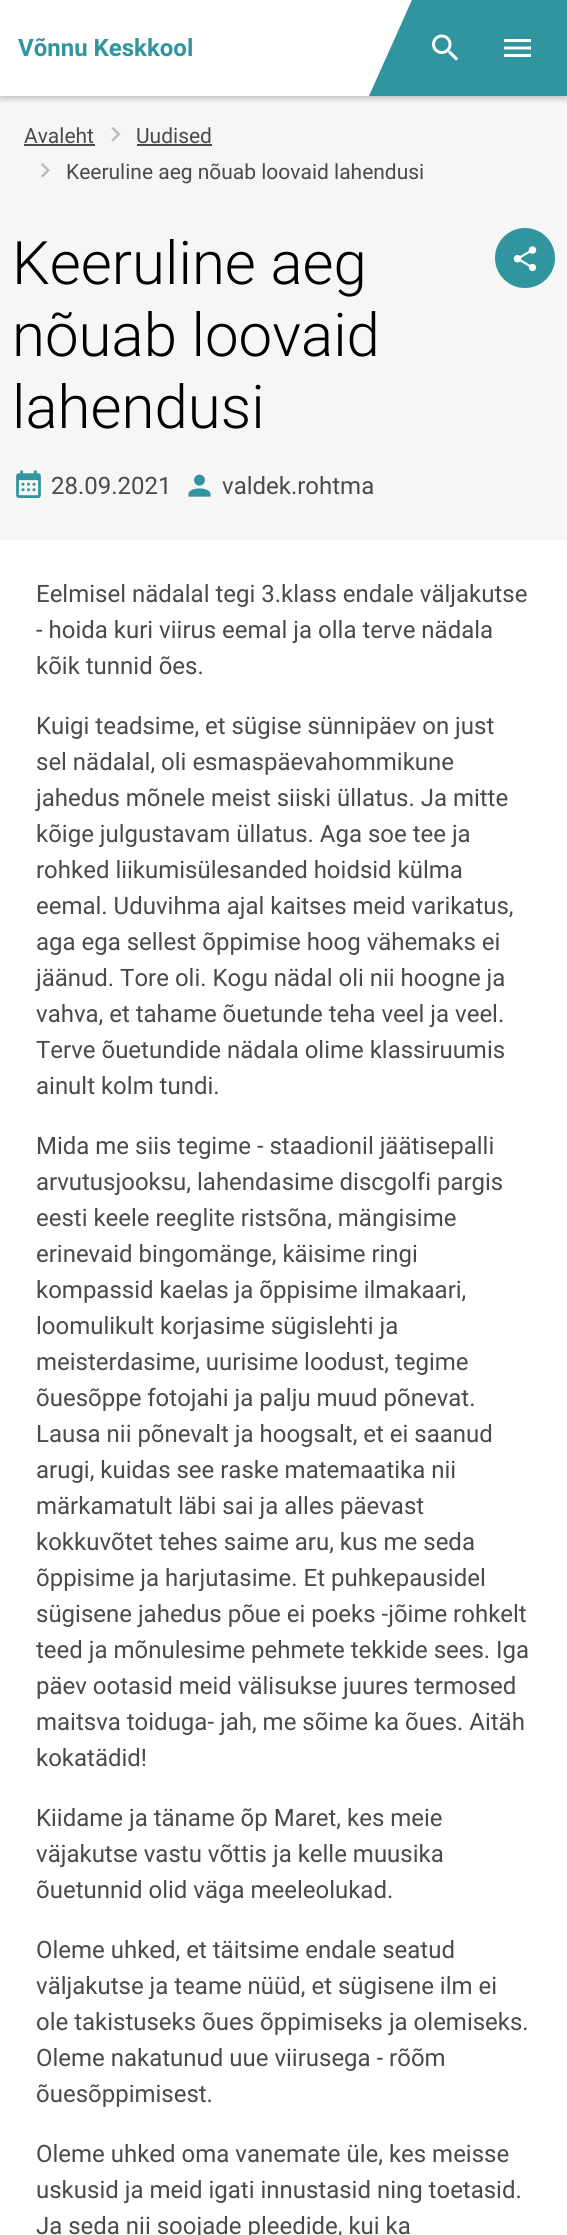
#include <cairo.h>
#include <math.h>
#include <stddef.h>

typedef struct { double x, y; const char *s; } line_t;

static void ink(cairo_t *ctx, unsigned color) {
    cairo_set_source_rgb(ctx, (color >> 16) / 255.0, (color >> 8 & 255) / 255.0, (color & 255) / 255.0);
}

static void round_path(cairo_t *ctx, double x, double y, double w, double h, double r) {
    cairo_new_sub_path(ctx);
    cairo_arc(ctx, x + w - r, y + h - r, r, 0, M_PI / 2);
    cairo_arc(ctx, x + r, y + h - r, r, M_PI / 2, M_PI);
    cairo_arc(ctx, x + r, y + r, r, M_PI, 1.5 * M_PI);
    cairo_arc(ctx, x + w - r, y + r, r, 1.5 * M_PI, 2 * M_PI);
    cairo_close_path(ctx);
}

static void blur_box(cairo_t *ctx, double x, double y, double w, double h, double r, double blur, double alpha) {
    cairo_push_group_with_content(ctx, CAIRO_CONTENT_ALPHA);
    cairo_set_operator(ctx, CAIRO_OPERATOR_SOURCE);
    for (int i = 15; i >= -15 && fmin(w, h) + blur * i / 3 > 0; i -= 2) {
        double e = blur * i / 6;
        cairo_set_source_rgba(ctx, 0, 0, 0, alpha * erfc((i - 1) / 8.5) / 2);
        round_path(ctx, x - e, y - e, w + 2 * e, h + 2 * e, fmax(0, fmin(r + e + blur * .6, fmin(w, h) / 2 + e)));
        cairo_fill(ctx);
    }
    cairo_pattern_t *soft = cairo_pop_group(ctx);
    cairo_mask(ctx, soft);
    cairo_pattern_destroy(soft);
}

static void paste(cairo_t *ctx, const char *path, double x, double y, double w, double h) {
    cairo_surface_t *image = cairo_image_surface_create_from_png(path);
    cairo_save(ctx);
    cairo_set_source_surface(ctx, image, x, y);
    cairo_rectangle(ctx, x, y, w, h);
    cairo_fill(ctx);
    cairo_restore(ctx);
    cairo_surface_destroy(image);
}

int main(void) {
    cairo_surface_t *surface = cairo_image_surface_create(CAIRO_FORMAT_RGB24, 567, 2235);
    cairo_t *ctx = cairo_create(surface);
    cairo_font_options_t *options = cairo_font_options_create();
    cairo_font_options_set_hint_metrics(options, CAIRO_HINT_METRICS_OFF);
    cairo_font_options_set_hint_style(options, CAIRO_HINT_STYLE_NONE);
    cairo_set_font_options(ctx, options);
    cairo_set_miter_limit(ctx, 4);
    ink(ctx, 0xFFFFFF);
    cairo_paint(ctx);
    ink(ctx, 0xF6F6F6);
    cairo_rectangle(ctx, 0, 96, 567, 444);
    cairo_fill(ctx);
    cairo_save(ctx);
    cairo_rectangle(ctx, 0, 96, 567, 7);
    cairo_clip(ctx);
    ink(ctx, 0x000000);
    blur_box(ctx, 0, 3, 567, 96, 0, 3, 0.2);
    cairo_restore(ctx);
    cairo_select_font_face(ctx, "Roboto", CAIRO_FONT_SLANT_NORMAL, CAIRO_FONT_WEIGHT_BOLD);
    cairo_set_font_size(ctx, 24);
    ink(ctx, 0x30959E);
    cairo_move_to(ctx, 18, 56);
    cairo_show_text(ctx, "Võnnu Keskkool");
    cairo_rectangle(ctx, 369, 0, 198, 96);
    cairo_fill(ctx);
    ink(ctx, 0xFFFFFF);
    cairo_new_path(ctx);
    cairo_move_to(ctx, 353, -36);
    cairo_line_to(ctx, 428, -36);
    cairo_line_to(ctx, 369, 96);
    cairo_line_to(ctx, 294, 96);
    cairo_close_path(ctx);
    cairo_fill(ctx);
    paste(ctx, "media/1.png", 432, 34, 27, 27);
    paste(ctx, "media/2.png", 504, 39, 27, 18);
    cairo_select_font_face(ctx, "Roboto", CAIRO_FONT_SLANT_NORMAL, CAIRO_FONT_WEIGHT_NORMAL);
    cairo_set_font_size(ctx, 21);
    ink(ctx, 0x4A4A4A);
    cairo_move_to(ctx, 24, 143);
    cairo_show_text(ctx, "Avaleht");
    cairo_rectangle(ctx, 24, 144, 71, 2);
    cairo_fill(ctx);
    paste(ctx, "media/3.png", 111, 127, 10, 15);
    cairo_move_to(ctx, 136, 143);
    cairo_show_text(ctx, "Uudised");
    cairo_rectangle(ctx, 137, 144, 75, 2);
    cairo_fill(ctx);
    paste(ctx, "media/4.png", 40, 163, 10, 15);
    cairo_move_to(ctx, 66, 179);
    cairo_show_text(ctx, "Keeruline aeg nõuab loovaid lahendusi");
    cairo_select_font_face(ctx, "Roboto Light", CAIRO_FONT_SLANT_NORMAL, CAIRO_FONT_WEIGHT_NORMAL);
    cairo_set_font_size(ctx, 60);
    ink(ctx, 0x000000);
    {
        static const line_t items[] = {
            {12, 284, "Keeruline aeg"},
            {12, 356, "nõuab loovaid"},
            {12, 428, "lahendusi"},
        };
        for (size_t i = 0; i < sizeof items / sizeof *items; i++) {
            cairo_move_to(ctx, items[i].x, items[i].y);
            cairo_show_text(ctx, items[i].s);
        }
    }
    ink(ctx, 0x30959E);
    cairo_new_path(ctx);
    cairo_arc(ctx, 525, 258, 30, 0, 2 * M_PI);
    cairo_fill(ctx);
    paste(ctx, "media/5.png", 513, 246, 24, 26);
    paste(ctx, "media/6.png", 16, 470, 25, 28);
    cairo_select_font_face(ctx, "Roboto", CAIRO_FONT_SLANT_NORMAL, CAIRO_FONT_WEIGHT_NORMAL);
    cairo_set_font_size(ctx, 24);
    ink(ctx, 0x4A4A4A);
    cairo_move_to(ctx, 51, 494);
    cairo_show_text(ctx, "28.09.2021");
    paste(ctx, "media/7.png", 188, 474, 23, 23);
    {
        static const line_t items[] = {
            {222, 494, "valdek.rohtma"},
            {36, 602, "Eelmisel nädalal tegi 3.klass endale väljakutse"},
            {36, 638, "- hoida kuri viirus eemal ja olla terve nädala"},
            {36, 674, "kõik tunnid ões."},
            {36, 734, "Kuigi teadsime, et sügise sünnipäev on just"},
            {36, 770, "sel nädalal, oli esmaspäevahommikune"},
            {36, 806, "jahedus mõnele meist siiski üllatus. Ja mitte"},
            {36, 842, "kõige julgustavam üllatus. Aga soe tee ja"},
            {36, 878, "rohked liikumisülesanded hoidsid külma"},
            {36, 914, "eemal. Uduvihma ajal kaitses meid varikatus,"},
            {36, 950, "aga ega sellest õppimise hoog vähemaks ei"},
            {36, 986, "jäänud. Tore oli. Kogu nädal oli nii hoogne ja"},
            {36, 1022, "vahva, et tahame õuetunde teha veel ja veel."},
            {36, 1058, "Terve õuetundide nädala olime klassiruumis"},
            {36, 1094, "ainult kolm tundi."},
            {36, 1154, "Mida me siis tegime - staadionil jäätisepalli"},
            {36, 1190, "arvutusjooksu, lahendasime discgolfi pargis"},
            {36, 1226, "eesti keele reeglite ristsõna, mängisime"},
            {36, 1262, "erinevaid bingomänge, käisime ringi"},
            {36, 1298, "kompassid kaelas ja õppisime ilmakaari,"},
            {36, 1334, "loomulikult korjasime sügislehti ja"},
            {36, 1370, "meisterdasime, uurisime loodust, tegime"},
            {36, 1406, "õuesõppe fotojahi ja palju muud põnevat."},
            {36, 1442, "Lausa nii põnevalt ja hoogsalt, et ei saanud"},
            {36, 1478, "arugi, kuidas see raske matemaatika nii"},
            {36, 1514, "märkamatult läbi sai ja alles päevast"},
            {36, 1550, "kokkuvõtet tehes saime aru, kus me seda"},
            {36, 1586, "õppisime ja harjutasime. Et puhkepausidel"},
            {36, 1622, "sügisene jahedus põue ei poeks -jõime rohkelt"},
            {36, 1658, "teed ja mõnulesime pehmete tekkide sees. Iga"},
            {36, 1694, "päev ootasid meid välisukse juures termosed"},
            {36, 1730, "maitsva toiduga- jah, me sõime ka õues. Aitäh"},
            {36, 1766, "kokatädid!"},
            {36, 1826, "Kiidame ja täname õp Maret, kes meie"},
            {36, 1862, "väjakutse vastu võttis ja kelle muusika"},
            {36, 1898, "õuetunnid olid väga meeleolukad."},
            {36, 1958, "Oleme uhked, et täitsime endale seatud"},
            {36, 1994, "väljakutse ja teame nüüd, et sügisene ilm ei"},
            {36, 2030, "ole takistuseks õues õppimiseks ja olemiseks."},
            {36, 2066, "Oleme nakatunud uue viirusega - rõõm"},
            {36, 2102, "õuesõppimisest."},
            {36, 2162, "Oleme uhked oma vanemate üle, kes meisse"},
            {36, 2198, "uskusid ja meid igati innustasid ning toetasid."},
            {36, 2234, "Ja seda nii soojade pleedide, kui ka"},
        };
        for (size_t i = 0; i < sizeof items / sizeof *items; i++) {
            cairo_move_to(ctx, items[i].x, items[i].y);
            cairo_show_text(ctx, items[i].s);
        }
    }
    cairo_surface_write_to_png(surface, "image.png");
    cairo_font_options_destroy(options);
    cairo_destroy(ctx);
    cairo_surface_destroy(surface);
    return 0;
}
